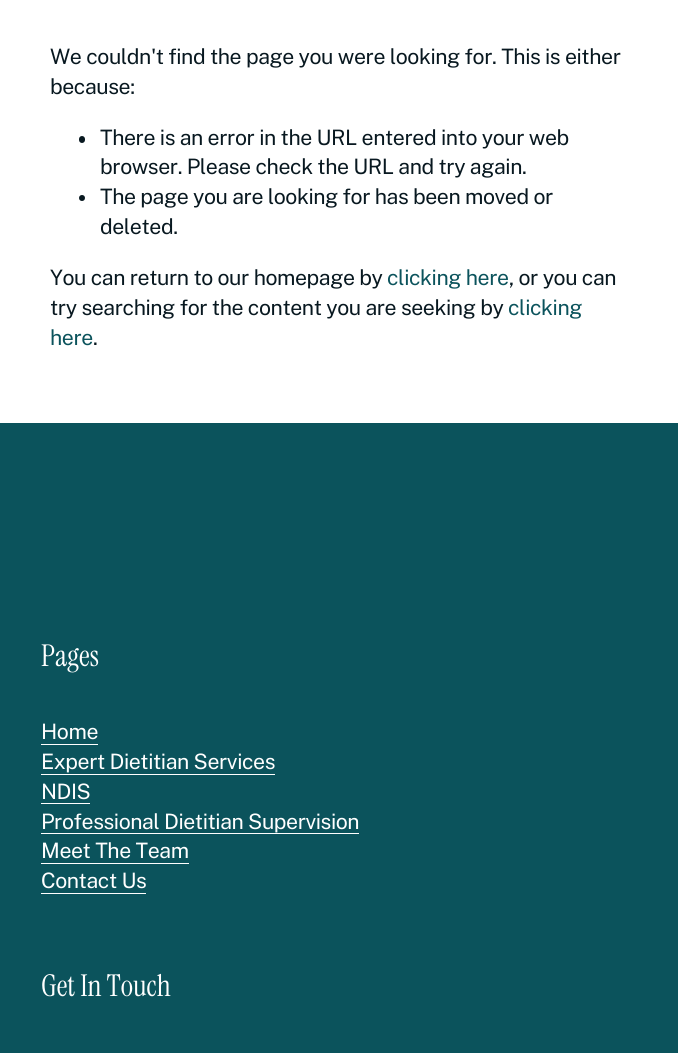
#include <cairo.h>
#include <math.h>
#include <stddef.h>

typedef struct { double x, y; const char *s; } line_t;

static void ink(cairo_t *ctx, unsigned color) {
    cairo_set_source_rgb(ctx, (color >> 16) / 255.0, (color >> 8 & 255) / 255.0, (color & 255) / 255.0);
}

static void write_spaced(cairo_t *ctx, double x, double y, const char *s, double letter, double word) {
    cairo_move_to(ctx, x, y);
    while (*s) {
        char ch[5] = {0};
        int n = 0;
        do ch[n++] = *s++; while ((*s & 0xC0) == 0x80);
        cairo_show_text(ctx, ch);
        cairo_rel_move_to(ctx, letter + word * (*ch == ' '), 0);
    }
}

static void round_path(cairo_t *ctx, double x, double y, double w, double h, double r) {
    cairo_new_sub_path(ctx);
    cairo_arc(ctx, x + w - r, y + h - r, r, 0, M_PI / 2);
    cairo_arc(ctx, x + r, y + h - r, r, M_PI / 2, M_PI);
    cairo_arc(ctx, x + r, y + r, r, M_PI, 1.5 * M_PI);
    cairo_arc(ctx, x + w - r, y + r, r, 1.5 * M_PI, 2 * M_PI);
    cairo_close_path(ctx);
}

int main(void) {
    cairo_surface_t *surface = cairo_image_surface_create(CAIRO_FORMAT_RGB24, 678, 1053);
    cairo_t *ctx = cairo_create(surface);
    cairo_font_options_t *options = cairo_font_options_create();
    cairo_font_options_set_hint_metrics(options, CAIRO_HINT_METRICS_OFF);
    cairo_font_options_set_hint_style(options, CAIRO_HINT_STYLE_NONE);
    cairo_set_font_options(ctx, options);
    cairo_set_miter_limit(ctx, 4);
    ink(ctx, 0xFFFFFF);
    cairo_paint(ctx);
    cairo_select_font_face(ctx, "Public Sans", CAIRO_FONT_SLANT_NORMAL, CAIRO_FONT_WEIGHT_NORMAL);
    cairo_set_font_size(ctx, 21.25);
    ink(ctx, 0x081820);
    write_spaced(ctx, 50, 64, "We couldn't find the page you were looking for. This is either", -0.43, 0);
    write_spaced(ctx, 50, 94, "because:", -0.43, 0);
    round_path(ctx, 79, 136, 6, 7, 3);
    cairo_fill(ctx);
    write_spaced(ctx, 100, 145, "There is an error in the URL entered into your web", -0.43, 0);
    write_spaced(ctx, 100, 174, "browser. Please check the URL and try again.", -0.43, 0);
    cairo_new_path(ctx);
    cairo_arc(ctx, 82, 198, 3, 0, 2 * M_PI);
    cairo_fill(ctx);
    {
        static const line_t items[] = {
            {100, 204, "The page you are looking for has been moved or"},
            {100, 234, "deleted."},
            {50, 285, "You can return to our homepage by"},
        };
        for (size_t i = 0; i < sizeof items / sizeof *items; i++) {
            write_spaced(ctx, items[i].x, items[i].y, items[i].s, -0.43, 0);
        }
    }
    ink(ctx, 0x0B535C);
    write_spaced(ctx, 387, 285, "clicking here", -0.43, 0);
    ink(ctx, 0x081820);
    write_spaced(ctx, 509, 285, ", or you can", -0.43, 0);
    write_spaced(ctx, 50, 315, "try searching for the content you are seeking by", -0.43, 0);
    ink(ctx, 0x0B535C);
    write_spaced(ctx, 508, 315, "clicking", -0.43, 0);
    write_spaced(ctx, 50, 345, "here", -0.43, 0);
    ink(ctx, 0x081820);
    write_spaced(ctx, 93, 345, ".", -0.43, 0);
    ink(ctx, 0x0B535C);
    cairo_rectangle(ctx, 0, 423, 678, 630);
    cairo_fill(ctx);
    cairo_select_font_face(ctx, "Instrument Serif", CAIRO_FONT_SLANT_NORMAL, CAIRO_FONT_WEIGHT_NORMAL);
    cairo_set_font_size(ctx, 30);
    ink(ctx, 0xFFFFFF);
    cairo_move_to(ctx, 41, 666);
    cairo_show_text(ctx, "Pages");
    cairo_select_font_face(ctx, "Public Sans", CAIRO_FONT_SLANT_NORMAL, CAIRO_FONT_WEIGHT_NORMAL);
    cairo_set_font_size(ctx, 21.25);
    write_spaced(ctx, 41, 739, "Home", -0.43, 0);
    cairo_rectangle(ctx, 41, 744, 57, 1);
    cairo_fill(ctx);
    write_spaced(ctx, 41, 769, "Expert Dietitian Services", -0.43, 0);
    cairo_rectangle(ctx, 41, 774, 234, 1);
    cairo_fill(ctx);
    write_spaced(ctx, 41, 799, "NDIS", -0.43, 0);
    cairo_rectangle(ctx, 41, 803, 49, 1);
    cairo_fill(ctx);
    write_spaced(ctx, 41, 829, "Professional Dietitian Supervision", -0.43, 0);
    cairo_rectangle(ctx, 41, 833, 318, 1);
    cairo_fill(ctx);
    write_spaced(ctx, 41, 858, "Meet The Team", -0.43, 0);
    cairo_rectangle(ctx, 41, 863, 148, 1);
    cairo_fill(ctx);
    write_spaced(ctx, 41, 888, "Contact Us", -0.43, 0);
    cairo_rectangle(ctx, 41, 893, 105, 1);
    cairo_fill(ctx);
    cairo_select_font_face(ctx, "Instrument Serif", CAIRO_FONT_SLANT_NORMAL, CAIRO_FONT_WEIGHT_NORMAL);
    cairo_set_font_size(ctx, 30);
    cairo_move_to(ctx, 41, 996);
    cairo_show_text(ctx, "Get In Touch");
    cairo_surface_write_to_png(surface, "image.png");
    cairo_font_options_destroy(options);
    cairo_destroy(ctx);
    cairo_surface_destroy(surface);
    return 0;
}
